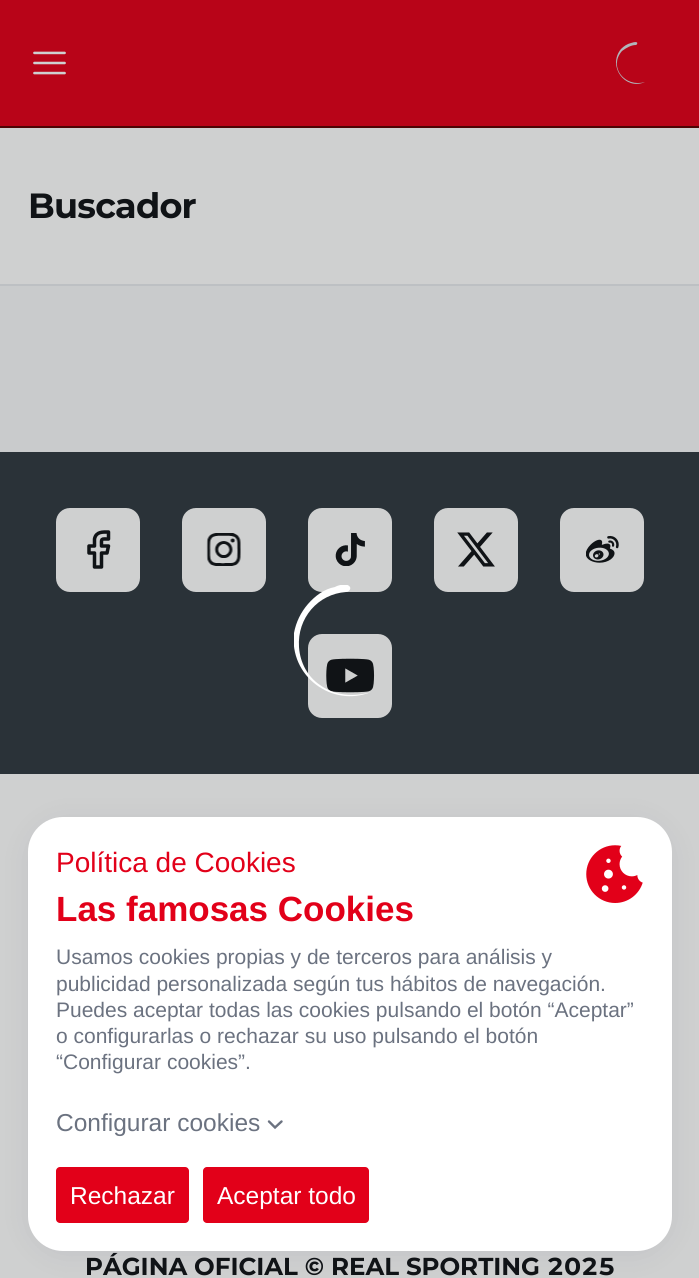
#include <cairo.h>
#include <math.h>
#include <stddef.h>

typedef struct { double x, y; const char *s; } line_t;

static void ink(cairo_t *ctx, unsigned color) {
    cairo_set_source_rgb(ctx, (color >> 16) / 255.0, (color >> 8 & 255) / 255.0, (color & 255) / 255.0);
}

static void write_spaced(cairo_t *ctx, double x, double y, const char *s, double letter, double word) {
    cairo_move_to(ctx, x, y);
    while (*s) {
        char ch[5] = {0};
        int n = 0;
        do ch[n++] = *s++; while ((*s & 0xC0) == 0x80);
        cairo_show_text(ctx, ch);
        cairo_rel_move_to(ctx, letter + word * (*ch == ' '), 0);
    }
}

static void round_path(cairo_t *ctx, double x, double y, double w, double h, double r) {
    cairo_new_sub_path(ctx);
    cairo_arc(ctx, x + w - r, y + h - r, r, 0, M_PI / 2);
    cairo_arc(ctx, x + r, y + h - r, r, M_PI / 2, M_PI);
    cairo_arc(ctx, x + r, y + r, r, M_PI, 1.5 * M_PI);
    cairo_arc(ctx, x + w - r, y + r, r, 1.5 * M_PI, 2 * M_PI);
    cairo_close_path(ctx);
}

static void blur_box(cairo_t *ctx, double x, double y, double w, double h, double r, double blur, double alpha) {
    cairo_push_group_with_content(ctx, CAIRO_CONTENT_ALPHA);
    cairo_set_operator(ctx, CAIRO_OPERATOR_SOURCE);
    for (int i = 15; i >= -15 && fmin(w, h) + blur * i / 3 > 0; i -= 2) {
        double e = blur * i / 6;
        cairo_set_source_rgba(ctx, 0, 0, 0, alpha * erfc((i - 1) / 8.5) / 2);
        round_path(ctx, x - e, y - e, w + 2 * e, h + 2 * e, fmax(0, fmin(r + e + blur * .6, fmin(w, h) / 2 + e)));
        cairo_fill(ctx);
    }
    cairo_pattern_t *soft = cairo_pop_group(ctx);
    cairo_mask(ctx, soft);
    cairo_pattern_destroy(soft);
}

static void paste(cairo_t *ctx, const char *path, double x, double y, double w, double h) {
    cairo_surface_t *image = cairo_image_surface_create_from_png(path);
    cairo_save(ctx);
    cairo_set_source_surface(ctx, image, x, y);
    cairo_rectangle(ctx, x, y, w, h);
    cairo_fill(ctx);
    cairo_restore(ctx);
    cairo_surface_destroy(image);
}

int main(void) {
    cairo_surface_t *surface = cairo_image_surface_create(CAIRO_FORMAT_RGB24, 699, 1278);
    cairo_t *ctx = cairo_create(surface);
    cairo_font_options_t *options = cairo_font_options_create();
    cairo_font_options_set_hint_metrics(options, CAIRO_HINT_METRICS_OFF);
    cairo_font_options_set_hint_style(options, CAIRO_HINT_STYLE_NONE);
    cairo_set_font_options(ctx, options);
    cairo_set_miter_limit(ctx, 4);
    ink(ctx, 0xC9CBCC);
    cairo_paint(ctx);
    ink(ctx, 0xB80418);
    cairo_rectangle(ctx, 0, 0, 699, 126);
    cairo_fill(ctx);
    ink(ctx, 0x4D0404);
    cairo_rectangle(ctx, 0, 126, 699, 2);
    cairo_fill(ctx);
    paste(ctx, "media/1.png", 33, 51, 33, 24);
    ink(ctx, 0xB1B6BA);
    cairo_set_fill_rule(ctx, CAIRO_FILL_RULE_EVEN_ODD);
    cairo_new_path(ctx);
    cairo_move_to(ctx, 636, 45);
    cairo_curve_to(ctx, 631, 45, 626, 48, 622, 51);
    cairo_curve_to(ctx, 608, 67, 625, 88, 645, 82);
    cairo_curve_to(ctx, 625, 91, 607, 66, 621, 49);
    cairo_curve_to(ctx, 624, 46, 627, 44, 631, 43);
    cairo_curve_to(ctx, 640, 40, 637, 45, 636, 45);
    cairo_close_path(ctx);
    cairo_fill(ctx);
    ink(ctx, 0xCFD0D0);
    cairo_rectangle(ctx, 0, 128, 699, 156);
    cairo_fill(ctx);
    ink(ctx, 0xBDC0C3);
    cairo_rectangle(ctx, 0, 284, 699, 2);
    cairo_fill(ctx);
    cairo_select_font_face(ctx, "Montserrat", CAIRO_FONT_SLANT_NORMAL, CAIRO_FONT_WEIGHT_BOLD);
    cairo_set_font_size(ctx, 35);
    ink(ctx, 0x101316);
    write_spaced(ctx, 28, 218, "Buscador", -0.75, 0);
    ink(ctx, 0x2A3238);
    cairo_rectangle(ctx, 0, 452, 699, 322);
    cairo_fill(ctx);
    ink(ctx, 0xCFD0D0);
    round_path(ctx, 308, 508, 84, 84, 14);
    cairo_fill(ctx);
    round_path(ctx, 308, 634, 84, 84, 14);
    cairo_fill(ctx);
    paste(ctx, "media/6.png", 326, 658, 49, 35);
    cairo_save(ctx);
    cairo_set_fill_rule(ctx, CAIRO_FILL_RULE_WINDING);
    cairo_rectangle(ctx, 294, 585, 112, 112);
    cairo_clip(ctx);
    ink(ctx, 0xFFFFFF);
    cairo_set_fill_rule(ctx, CAIRO_FILL_RULE_EVEN_ODD);
    cairo_new_path(ctx);
    cairo_move_to(ctx, 346, 592);
    cairo_curve_to(ctx, 318, 594, 297, 618, 299, 647);
    cairo_curve_to(ctx, 300, 663, 308, 677, 320, 685);
    cairo_curve_to(ctx, 335, 696, 354, 697, 371, 692);
    cairo_curve_to(ctx, 332, 708, 289, 676, 294, 633);
    cairo_curve_to(ctx, 296, 622, 301, 612, 308, 604);
    cairo_curve_to(ctx, 315, 596, 324, 589, 335, 587);
    cairo_curve_to(ctx, 336, 586, 347, 582, 350, 587);
    cairo_curve_to(ctx, 351, 589, 349, 592, 346, 592);
    cairo_close_path(ctx);
    cairo_fill(ctx);
    cairo_restore(ctx);
    round_path(ctx, 56, 508, 84, 84, 14);
    cairo_fill(ctx);
    cairo_new_path(ctx);
    cairo_move_to(ctx, 108.5, 532);
    cairo_curve_to(ctx, 102.5, 532, 96, 531.5, 94.5, 539);
    cairo_line_to(ctx, 94.5, 546);
    cairo_line_to(ctx, 89, 546);
    cairo_line_to(ctx, 89, 553);
    cairo_line_to(ctx, 94.5, 553);
    cairo_line_to(ctx, 94.5, 567);
    cairo_line_to(ctx, 101.5, 567);
    cairo_line_to(ctx, 101.5, 553);
    cairo_line_to(ctx, 107, 553);
    cairo_line_to(ctx, 108.5, 546);
    cairo_line_to(ctx, 101.5, 546);
    cairo_curve_to(ctx, 101.5, 538, 100.5, 539, 108.5, 539);
    cairo_close_path(ctx);
    ink(ctx, 0x101316);
    cairo_set_line_width(ctx, 3.5);
    cairo_set_line_cap(ctx, CAIRO_LINE_CAP_ROUND);
    cairo_set_line_join(ctx, CAIRO_LINE_JOIN_ROUND);
    cairo_stroke(ctx);
    ink(ctx, 0xCFD0D0);
    round_path(ctx, 182, 508, 84, 84, 14);
    cairo_fill(ctx);
    paste(ctx, "media/2.png", 206, 533, 35, 33);
    paste(ctx, "media/3.png", 335, 533, 30, 33);
    round_path(ctx, 434, 508, 84, 84, 14);
    cairo_fill(ctx);
    paste(ctx, "media/4.png", 457, 532, 38, 35);
    round_path(ctx, 560, 508, 84, 84, 14);
    cairo_fill(ctx);
    paste(ctx, "media/5.png", 586, 535, 33, 28);
    cairo_rectangle(ctx, 0, 774, 699, 504);
    cairo_fill(ctx);
    cairo_select_font_face(ctx, "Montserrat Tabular", CAIRO_FONT_SLANT_NORMAL, CAIRO_FONT_WEIGHT_BOLD);
    cairo_set_font_size(ctx, 24.5);
    ink(ctx, 0x101316);
    cairo_move_to(ctx, 85, 1275);
    cairo_show_text(ctx, "PÁGINA OFICIAL © REAL SPORTING 2025");
    ink(ctx, 0x01013F);
    blur_box(ctx, 35, 828, 630, 420, 28, 16.5, 0.1);
    ink(ctx, 0xFFFFFF);
    round_path(ctx, 28, 817, 644, 434, 35);
    cairo_fill(ctx);
    cairo_select_font_face(ctx, "Liberation Sans", CAIRO_FONT_SLANT_NORMAL, CAIRO_FONT_WEIGHT_NORMAL);
    cairo_set_font_size(ctx, 28);
    ink(ctx, 0xE20019);
    cairo_move_to(ctx, 56, 872);
    cairo_show_text(ctx, "Política de Cookies");
    cairo_select_font_face(ctx, "Liberation Sans", CAIRO_FONT_SLANT_NORMAL, CAIRO_FONT_WEIGHT_BOLD);
    cairo_set_font_size(ctx, 35);
    cairo_move_to(ctx, 56, 921);
    cairo_show_text(ctx, "Las famosas Cookies");
    paste(ctx, "media/7.png", 586, 845, 57, 58);
    cairo_select_font_face(ctx, "Liberation Sans", CAIRO_FONT_SLANT_NORMAL, CAIRO_FONT_WEIGHT_NORMAL);
    cairo_set_font_size(ctx, 21);
    ink(ctx, 0x6B7280);
    {
        static const line_t items[] = {
            {56, 964, "Usamos cookies propias y de terceros para análisis y"},
            {56, 991, "publicidad personalizada según tus hábitos de navegación."},
            {56, 1017, "Puedes aceptar todas las cookies pulsando el botón “Aceptar”"},
            {56, 1043, "o configurarlas o rechazar su uso pulsando el botón"},
            {56, 1069, "“Configurar cookies”."},
        };
        for (size_t i = 0; i < sizeof items / sizeof *items; i++) {
            cairo_move_to(ctx, items[i].x, items[i].y);
            cairo_show_text(ctx, items[i].s);
        }
    }
    cairo_set_font_size(ctx, 24.5);
    cairo_move_to(ctx, 56, 1131);
    cairo_show_text(ctx, "Configurar cookies");
    cairo_new_path(ctx);
    cairo_move_to(ctx, 269, 1121.5);
    cairo_line_to(ctx, 275, 1127.5);
    cairo_line_to(ctx, 281.5, 1121.5);
    cairo_set_line_width(ctx, 2.4);
    cairo_set_line_join(ctx, CAIRO_LINE_JOIN_MITER);
    cairo_stroke(ctx);
    ink(ctx, 0xE20019);
    round_path(ctx, 56, 1167, 133, 56, 4);
    cairo_fill(ctx);
    ink(ctx, 0xFFFFFF);
    cairo_move_to(ctx, 70, 1204);
    cairo_show_text(ctx, "Rechazar");
    ink(ctx, 0xE20019);
    round_path(ctx, 203, 1167, 166, 56, 4);
    cairo_fill(ctx);
    ink(ctx, 0xFFFFFF);
    cairo_move_to(ctx, 217, 1204);
    cairo_show_text(ctx, "Aceptar todo");
    cairo_surface_write_to_png(surface, "image.png");
    cairo_font_options_destroy(options);
    cairo_destroy(ctx);
    cairo_surface_destroy(surface);
    return 0;
}
